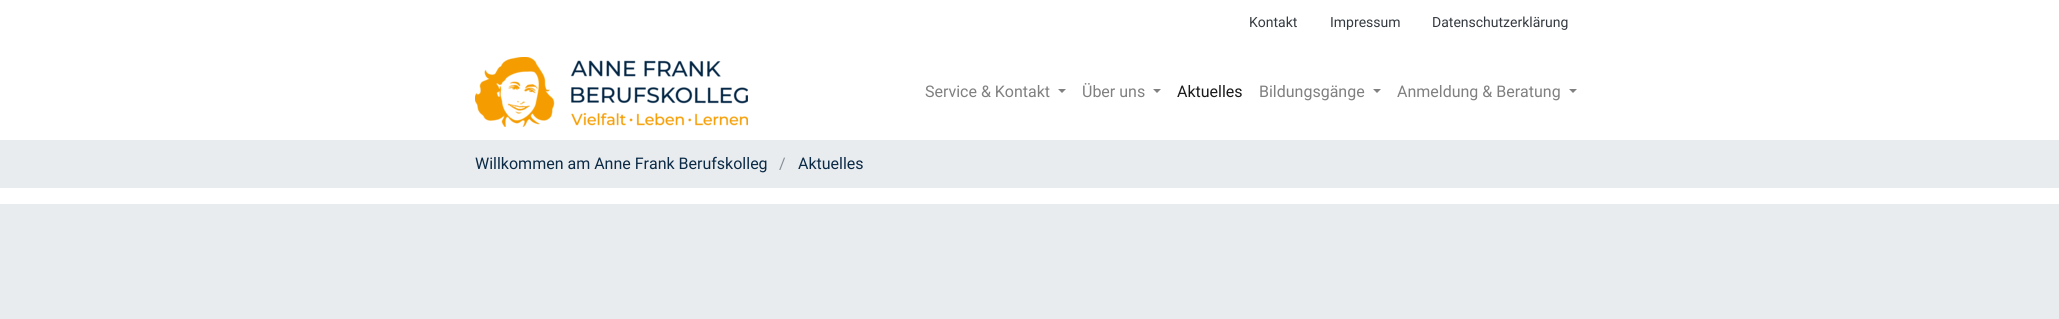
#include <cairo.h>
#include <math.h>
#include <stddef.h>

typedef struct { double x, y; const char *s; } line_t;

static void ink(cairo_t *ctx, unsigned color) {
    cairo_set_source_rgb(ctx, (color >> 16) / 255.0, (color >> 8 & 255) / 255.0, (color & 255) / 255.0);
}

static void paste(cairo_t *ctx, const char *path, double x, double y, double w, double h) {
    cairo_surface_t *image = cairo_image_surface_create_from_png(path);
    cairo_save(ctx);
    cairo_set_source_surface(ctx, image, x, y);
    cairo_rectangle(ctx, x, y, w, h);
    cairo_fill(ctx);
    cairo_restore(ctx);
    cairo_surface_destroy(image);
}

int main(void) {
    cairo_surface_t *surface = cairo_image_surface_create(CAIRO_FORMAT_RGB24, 2059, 319);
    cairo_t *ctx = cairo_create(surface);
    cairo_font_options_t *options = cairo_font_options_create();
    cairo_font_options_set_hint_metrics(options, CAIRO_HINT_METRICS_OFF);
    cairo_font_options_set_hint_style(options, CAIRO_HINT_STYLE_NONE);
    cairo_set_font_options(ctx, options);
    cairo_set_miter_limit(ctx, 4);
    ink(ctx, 0xFFFFFF);
    cairo_paint(ctx);
    cairo_select_font_face(ctx, "Roboto", CAIRO_FONT_SLANT_NORMAL, CAIRO_FONT_WEIGHT_NORMAL);
    cairo_set_font_size(ctx, 14);
    ink(ctx, 0x343A40);
    {
        static const line_t items[] = {
            {1249, 27, "Kontakt"},
            {1330, 27, "Impressum"},
            {1432, 27, "Datenschutzerklärung"},
        };
        for (size_t i = 0; i < sizeof items / sizeof *items; i++) {
            cairo_move_to(ctx, items[i].x, items[i].y);
            cairo_show_text(ctx, items[i].s);
        }
    }
    paste(ctx, "media/1.png", 475, 57, 273, 70);
    cairo_set_font_size(ctx, 16);
    ink(ctx, 0x808080);
    cairo_move_to(ctx, 925, 97);
    cairo_show_text(ctx, "Service & Kontakt");
    cairo_new_path(ctx);
    cairo_move_to(ctx, 1058, 89);
    cairo_line_to(ctx, 1066, 89);
    cairo_line_to(ctx, 1062, 93);
    cairo_close_path(ctx);
    cairo_fill(ctx);
    cairo_move_to(ctx, 1082, 97);
    cairo_show_text(ctx, "Über uns");
    cairo_new_path(ctx);
    cairo_move_to(ctx, 1153, 89);
    cairo_line_to(ctx, 1161, 89);
    cairo_line_to(ctx, 1157, 93);
    cairo_close_path(ctx);
    cairo_fill(ctx);
    ink(ctx, 0x1A1A1A);
    cairo_move_to(ctx, 1177, 97);
    cairo_show_text(ctx, "Aktuelles");
    ink(ctx, 0x808080);
    cairo_move_to(ctx, 1259, 97);
    cairo_show_text(ctx, "Bildungsgänge");
    cairo_new_path(ctx);
    cairo_move_to(ctx, 1373, 89);
    cairo_line_to(ctx, 1381, 89);
    cairo_line_to(ctx, 1377, 93);
    cairo_close_path(ctx);
    cairo_fill(ctx);
    cairo_move_to(ctx, 1397, 97);
    cairo_show_text(ctx, "Anmeldung & Beratung");
    cairo_new_path(ctx);
    cairo_move_to(ctx, 1569, 89);
    cairo_line_to(ctx, 1577, 89);
    cairo_line_to(ctx, 1573, 93);
    cairo_close_path(ctx);
    cairo_fill(ctx);
    ink(ctx, 0xE9ECEF);
    cairo_rectangle(ctx, 0, 140, 2059, 48);
    cairo_fill(ctx);
    ink(ctx, 0x0B2A46);
    cairo_move_to(ctx, 475, 169);
    cairo_show_text(ctx, "Willkommen am Anne Frank Berufskolleg");
    ink(ctx, 0x868E96);
    cairo_move_to(ctx, 779, 169);
    cairo_show_text(ctx, "/");
    ink(ctx, 0x0B2A46);
    cairo_move_to(ctx, 798, 169);
    cairo_show_text(ctx, "Aktuelles");
    ink(ctx, 0xE9ECEF);
    cairo_rectangle(ctx, 0, 204, 2059, 115);
    cairo_fill(ctx);
    cairo_surface_write_to_png(surface, "image.png");
    cairo_font_options_destroy(options);
    cairo_destroy(ctx);
    cairo_surface_destroy(surface);
    return 0;
}
